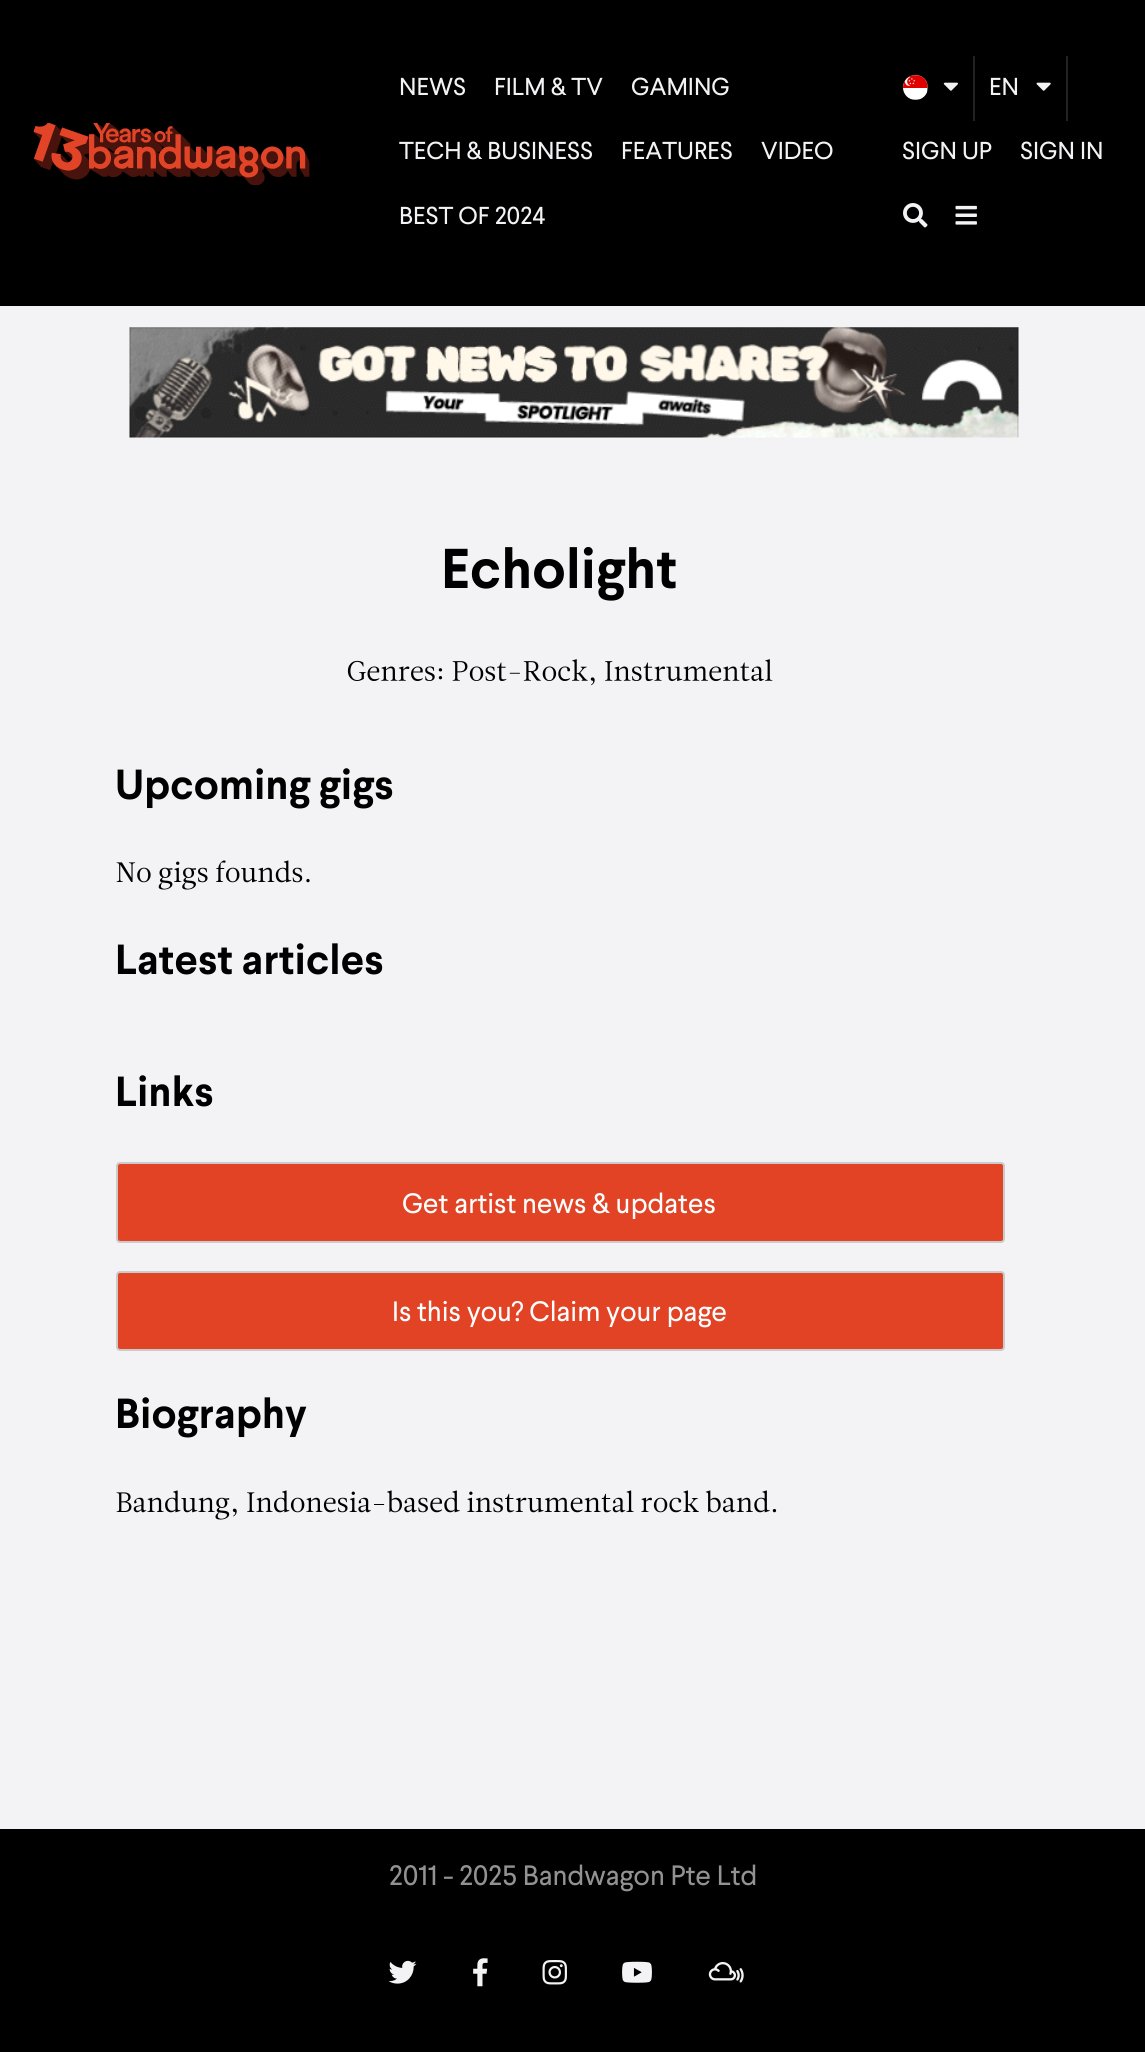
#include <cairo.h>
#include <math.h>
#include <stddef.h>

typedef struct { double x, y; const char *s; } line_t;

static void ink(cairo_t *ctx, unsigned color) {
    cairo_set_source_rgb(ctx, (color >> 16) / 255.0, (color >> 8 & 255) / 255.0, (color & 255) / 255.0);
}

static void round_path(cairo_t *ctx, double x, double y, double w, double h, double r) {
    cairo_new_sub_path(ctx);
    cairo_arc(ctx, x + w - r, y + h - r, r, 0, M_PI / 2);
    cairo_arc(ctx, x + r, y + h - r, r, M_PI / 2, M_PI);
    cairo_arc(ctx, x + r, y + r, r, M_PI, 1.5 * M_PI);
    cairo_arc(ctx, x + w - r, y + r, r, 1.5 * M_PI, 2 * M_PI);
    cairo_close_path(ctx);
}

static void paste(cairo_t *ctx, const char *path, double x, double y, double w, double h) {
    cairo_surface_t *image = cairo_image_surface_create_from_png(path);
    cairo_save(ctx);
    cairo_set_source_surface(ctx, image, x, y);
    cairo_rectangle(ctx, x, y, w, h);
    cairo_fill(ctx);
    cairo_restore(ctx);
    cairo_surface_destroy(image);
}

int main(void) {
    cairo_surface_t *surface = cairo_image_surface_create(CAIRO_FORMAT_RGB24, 1145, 2052);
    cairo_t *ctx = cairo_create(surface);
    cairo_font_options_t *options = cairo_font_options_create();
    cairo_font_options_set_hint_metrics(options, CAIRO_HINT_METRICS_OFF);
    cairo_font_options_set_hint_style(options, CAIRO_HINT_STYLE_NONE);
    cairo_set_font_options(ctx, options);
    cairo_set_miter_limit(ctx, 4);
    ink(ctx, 0xF3F3F5);
    cairo_paint(ctx);
    ink(ctx, 0x000000);
    cairo_rectangle(ctx, 0, 0, 1145, 306);
    cairo_fill(ctx);
    paste(ctx, "media/1.png", 33, 123, 277, 63);
    cairo_select_font_face(ctx, "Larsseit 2", CAIRO_FONT_SLANT_NORMAL, CAIRO_FONT_WEIGHT_NORMAL);
    cairo_set_font_size(ctx, 24.5);
    ink(ctx, 0xF3F3F5);
    {
        static const line_t items[] = {
            {399, 95, "NEWS"},
            {494, 95, "FILM & TV"},
            {631, 95, "GAMING"},
            {399, 159, "TECH & BUSINESS"},
            {621, 159, "FEATURES"},
            {761, 159, "VIDEO"},
            {399, 224, "BEST OF 2024"},
        };
        for (size_t i = 0; i < sizeof items / sizeof *items; i++) {
            cairo_move_to(ctx, items[i].x, items[i].y);
            cairo_show_text(ctx, items[i].s);
        }
    }
    ink(ctx, 0x222222);
    cairo_rectangle(ctx, 973, 56, 2, 65);
    cairo_fill(ctx);
    paste(ctx, "media/2.png", 903, 75, 25, 25);
    paste(ctx, "media/3.png", 943, 82, 15, 9);
    cairo_rectangle(ctx, 1066, 56, 2, 65);
    cairo_fill(ctx);
    ink(ctx, 0xF3F3F5);
    cairo_move_to(ctx, 989, 95);
    cairo_show_text(ctx, "EN");
    paste(ctx, "media/4.png", 1036, 82, 15, 9);
    cairo_move_to(ctx, 902, 159);
    cairo_show_text(ctx, "SIGN UP");
    cairo_move_to(ctx, 1020, 159);
    cairo_show_text(ctx, "SIGN IN");
    paste(ctx, "media/5.png", 903, 203, 25, 25);
    paste(ctx, "media/6.png", 955, 205, 22, 20);
    paste(ctx, "media/7.png", 129, 327, 890, 111);
    cairo_select_font_face(ctx, "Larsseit", CAIRO_FONT_SLANT_NORMAL, CAIRO_FONT_WEIGHT_NORMAL);
    cairo_set_font_size(ctx, 56);
    ink(ctx, 0x000000);
    cairo_move_to(ctx, 441, 588);
    cairo_show_text(ctx, "Echolight");
    paste(ctx, "media/8.png", 347, 660, 96, 21);
    paste(ctx, "media/9.png", 452, 659, 321, 27);
    cairo_set_font_size(ctx, 42);
    cairo_move_to(ctx, 115, 799);
    cairo_show_text(ctx, "Upcoming gigs");
    paste(ctx, "media/10.png", 116, 860, 194, 30);
    cairo_move_to(ctx, 115, 974);
    cairo_show_text(ctx, "Latest articles");
    cairo_move_to(ctx, 115, 1106);
    cairo_show_text(ctx, "Links");
    ink(ctx, 0xE24325);
    round_path(ctx, 117, 1163, 887, 79, 3);
    cairo_fill_preserve(ctx);
    ink(ctx, 0xCBCBCB);
    cairo_stroke(ctx);
    cairo_select_font_face(ctx, "Larsseit 2", CAIRO_FONT_SLANT_NORMAL, CAIRO_FONT_WEIGHT_NORMAL);
    cairo_set_font_size(ctx, 28);
    ink(ctx, 0xFFFFFF);
    cairo_move_to(ctx, 402, 1213);
    cairo_show_text(ctx, "Get artist news & updates");
    ink(ctx, 0xE24325);
    round_path(ctx, 117, 1272, 887, 78, 3);
    cairo_fill_preserve(ctx);
    ink(ctx, 0xCBCBCB);
    cairo_stroke(ctx);
    ink(ctx, 0xFFFFFF);
    cairo_move_to(ctx, 392, 1321);
    cairo_show_text(ctx, "Is this you? Claim your page");
    cairo_select_font_face(ctx, "Larsseit", CAIRO_FONT_SLANT_NORMAL, CAIRO_FONT_WEIGHT_NORMAL);
    cairo_set_font_size(ctx, 42);
    ink(ctx, 0x000000);
    cairo_move_to(ctx, 115, 1428);
    cairo_show_text(ctx, "Biography");
    paste(ctx, "media/11.png", 116, 1490, 661, 30);
    cairo_rectangle(ctx, 0, 1829, 1145, 223);
    cairo_fill(ctx);
    cairo_select_font_face(ctx, "Larsseit 2", CAIRO_FONT_SLANT_NORMAL, CAIRO_FONT_WEIGHT_NORMAL);
    cairo_set_font_size(ctx, 28);
    ink(ctx, 0x929292);
    cairo_move_to(ctx, 389, 1885);
    cairo_show_text(ctx, "2011 - 2025 Bandwagon Pte Ltd");
    paste(ctx, "media/12.png", 388, 1960, 29, 24);
    paste(ctx, "media/13.png", 473, 1958, 15, 29);
    paste(ctx, "media/14.png", 542, 1960, 25, 25);
    paste(ctx, "media/15.png", 622, 1961, 30, 22);
    paste(ctx, "media/16.png", 708, 1962, 36, 21);
    cairo_surface_write_to_png(surface, "image.png");
    cairo_font_options_destroy(options);
    cairo_destroy(ctx);
    cairo_surface_destroy(surface);
    return 0;
}
